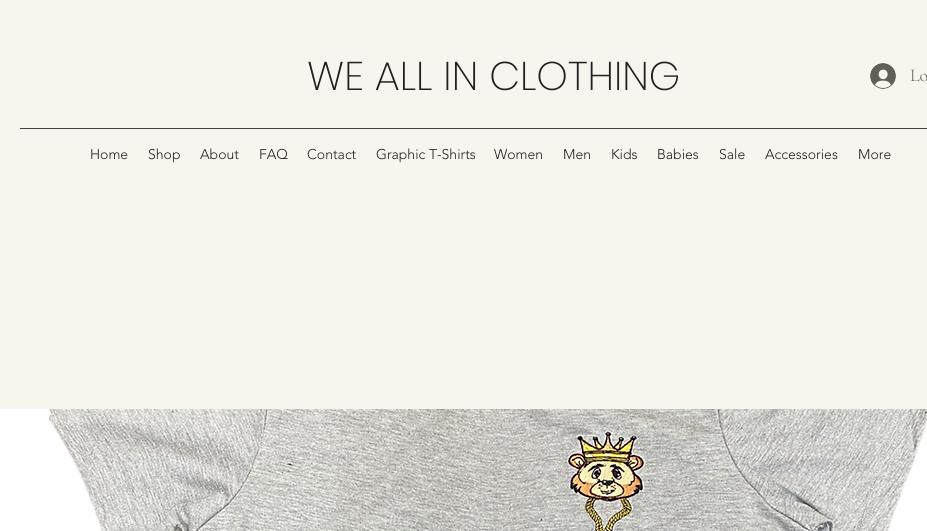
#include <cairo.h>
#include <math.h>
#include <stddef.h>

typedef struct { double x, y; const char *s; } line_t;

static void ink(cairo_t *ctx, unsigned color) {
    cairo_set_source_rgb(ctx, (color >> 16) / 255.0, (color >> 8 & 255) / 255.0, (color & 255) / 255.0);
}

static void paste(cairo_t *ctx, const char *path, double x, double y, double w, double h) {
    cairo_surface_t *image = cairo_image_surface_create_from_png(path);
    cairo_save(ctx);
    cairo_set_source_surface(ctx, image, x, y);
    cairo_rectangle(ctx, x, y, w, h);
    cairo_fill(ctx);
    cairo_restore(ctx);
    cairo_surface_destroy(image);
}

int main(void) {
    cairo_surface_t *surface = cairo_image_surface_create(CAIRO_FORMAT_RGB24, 927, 531);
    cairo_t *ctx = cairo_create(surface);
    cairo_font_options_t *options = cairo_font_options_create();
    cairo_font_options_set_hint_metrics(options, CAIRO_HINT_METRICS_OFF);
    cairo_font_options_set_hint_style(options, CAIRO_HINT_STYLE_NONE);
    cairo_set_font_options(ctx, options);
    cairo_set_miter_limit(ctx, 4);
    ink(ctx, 0xF7F5EE);
    cairo_paint(ctx);
    cairo_select_font_face(ctx, "Poppins ExtraLight", CAIRO_FONT_SLANT_NORMAL, CAIRO_FONT_WEIGHT_NORMAL);
    cairo_set_font_size(ctx, 40);
    ink(ctx, 0x202020);
    cairo_move_to(ctx, 307, 90);
    cairo_show_text(ctx, "WE ALL IN CLOTHING");
    paste(ctx, "media/1.png", 870, 63, 26, 26);
    cairo_select_font_face(ctx, "Cormorant Garamond Light", CAIRO_FONT_SLANT_NORMAL, CAIRO_FONT_WEIGHT_NORMAL);
    cairo_set_font_size(ctx, 18);
    ink(ctx, 0x616057);
    cairo_move_to(ctx, 910, 81);
    cairo_show_text(ctx, "Lo");
    ink(ctx, 0x40403F);
    cairo_rectangle(ctx, 20, 128, 907, 1);
    cairo_fill(ctx);
    cairo_select_font_face(ctx, "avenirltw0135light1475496 Light", CAIRO_FONT_SLANT_NORMAL, CAIRO_FONT_WEIGHT_NORMAL);
    cairo_set_font_size(ctx, 14);
    ink(ctx, 0x202020);
    {
        static const line_t items[] = {
            {90, 159, "Home"},
            {148, 159, "Shop"},
            {200, 159, "About"},
            {259, 159, "FAQ"},
            {307, 159, "Contact"},
            {376, 159, "Graphic T-Shirts"},
            {494, 159, "Women"},
            {563, 159, "Men"},
            {611, 159, "Kids"},
            {657, 159, "Babies"},
            {719, 159, "Sale"},
            {765, 159, "Accessories"},
            {858, 159, "More"},
        };
        for (size_t i = 0; i < sizeof items / sizeof *items; i++) {
            cairo_move_to(ctx, items[i].x, items[i].y);
            cairo_show_text(ctx, items[i].s);
        }
    }
    paste(ctx, "media/2.png", 0, 409, 927, 122);
    cairo_surface_write_to_png(surface, "image.png");
    cairo_font_options_destroy(options);
    cairo_destroy(ctx);
    cairo_surface_destroy(surface);
    return 0;
}
